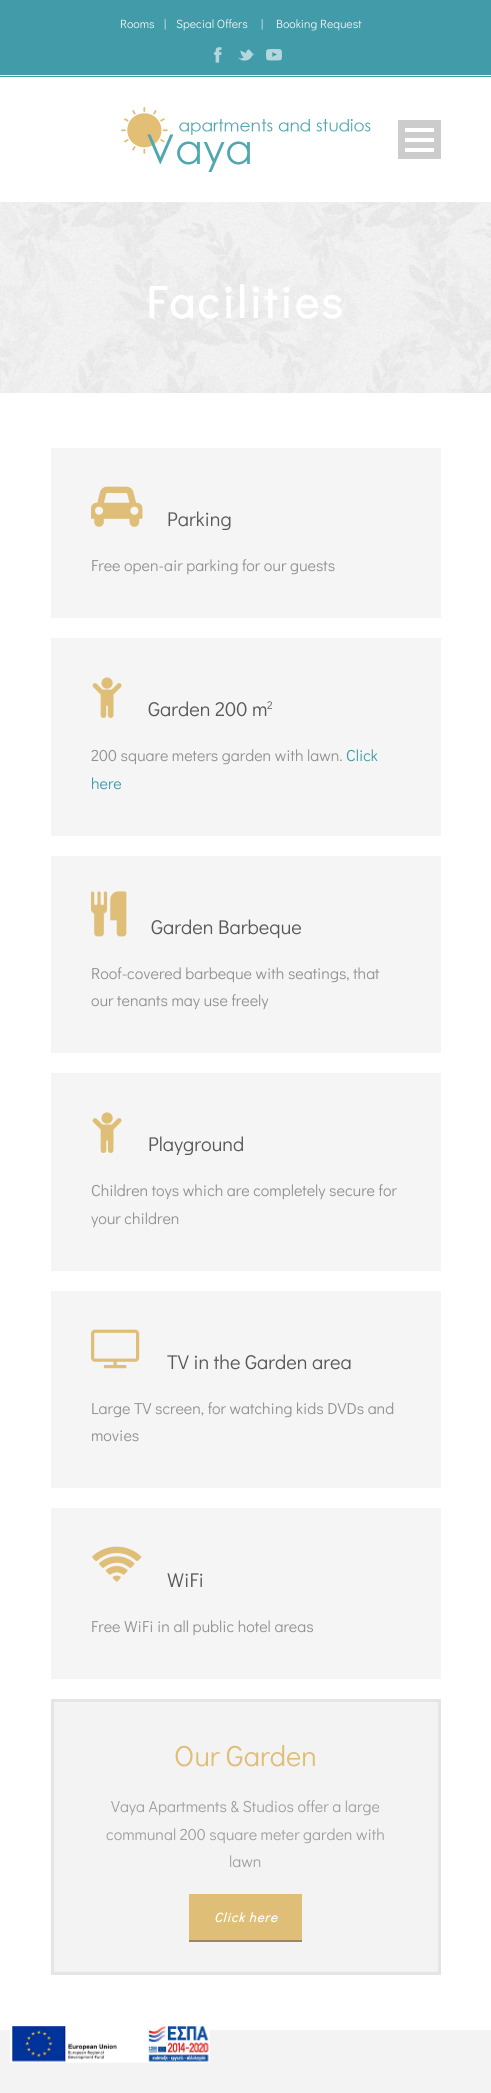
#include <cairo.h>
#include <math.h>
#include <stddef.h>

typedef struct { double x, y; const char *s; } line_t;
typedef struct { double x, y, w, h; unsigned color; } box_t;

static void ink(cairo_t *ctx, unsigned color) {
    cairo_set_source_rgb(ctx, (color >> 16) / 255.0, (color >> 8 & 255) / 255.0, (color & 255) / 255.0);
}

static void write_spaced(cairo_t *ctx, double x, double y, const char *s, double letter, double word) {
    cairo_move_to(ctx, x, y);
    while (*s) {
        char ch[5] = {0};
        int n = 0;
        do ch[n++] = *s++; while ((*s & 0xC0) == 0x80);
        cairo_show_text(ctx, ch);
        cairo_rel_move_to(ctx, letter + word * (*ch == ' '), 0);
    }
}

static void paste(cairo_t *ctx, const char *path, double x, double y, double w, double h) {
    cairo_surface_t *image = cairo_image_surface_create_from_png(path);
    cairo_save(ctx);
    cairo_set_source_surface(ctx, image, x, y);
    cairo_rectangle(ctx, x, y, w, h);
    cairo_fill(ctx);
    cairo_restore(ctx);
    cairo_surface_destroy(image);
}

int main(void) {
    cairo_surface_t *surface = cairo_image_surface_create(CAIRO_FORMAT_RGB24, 491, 2093);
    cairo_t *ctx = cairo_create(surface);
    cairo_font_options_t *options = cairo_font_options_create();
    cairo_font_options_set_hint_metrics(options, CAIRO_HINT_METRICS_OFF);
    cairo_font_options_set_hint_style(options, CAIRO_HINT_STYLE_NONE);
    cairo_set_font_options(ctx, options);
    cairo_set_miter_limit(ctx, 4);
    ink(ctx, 0xFFFFFF);
    cairo_paint(ctx);
    ink(ctx, 0x419BA8);
    cairo_rectangle(ctx, 0, 0, 491, 75);
    cairo_fill(ctx);
    cairo_select_font_face(ctx, "Didact Gothic", CAIRO_FONT_SLANT_NORMAL, CAIRO_FONT_WEIGHT_NORMAL);
    cairo_set_font_size(ctx, 12);
    ink(ctx, 0xF2F2F2);
    cairo_move_to(ctx, 120, 28);
    cairo_show_text(ctx, "Rooms");
    ink(ctx, 0xFFFFFF);
    cairo_move_to(ctx, 164, 28);
    cairo_show_text(ctx, "|");
    ink(ctx, 0xF2F2F2);
    cairo_move_to(ctx, 176, 28);
    cairo_show_text(ctx, "Special Offers");
    ink(ctx, 0xFFFFFF);
    cairo_move_to(ctx, 261, 28);
    cairo_show_text(ctx, "|");
    ink(ctx, 0xF2F2F2);
    cairo_move_to(ctx, 276, 28);
    cairo_show_text(ctx, "Booking Request");
    paste(ctx, "media/1.png", 214, 47, 8, 16);
    paste(ctx, "media/2.png", 238, 49, 16, 12);
    paste(ctx, "media/3.png", 266, 49, 16, 12);
    ink(ctx, 0x419BA8);
    cairo_rectangle(ctx, 0, 76, 491, 1);
    cairo_fill(ctx);
    paste(ctx, "media/4.png", 121, 107, 250, 65);
    {
        static const box_t items[] = {
            {398, 120, 43, 39, 0xCCCCCC},
            {405, 148, 29, 4, 0xFFFFFF},
            {405, 138, 29, 4, 0xFFFFFF},
            {405, 128, 29, 4, 0xFFFFFF},
            {0, 2030, 491, 63, 0xF3F3F3},
        };
        for (size_t i = 0; i < sizeof items / sizeof *items; i++) {
            ink(ctx, items[i].color);
            cairo_rectangle(ctx, items[i].x, items[i].y, items[i].w, items[i].h);
            cairo_fill(ctx);
        }
    }
    paste(ctx, "media/5.png", 10, 2024, 200, 39);
    paste(ctx, "media/6.png", 0, 202, 491, 191);
    cairo_select_font_face(ctx, "Didact Gothic", CAIRO_FONT_SLANT_NORMAL, CAIRO_FONT_WEIGHT_BOLD);
    cairo_set_font_size(ctx, 45);
    ink(ctx, 0xFFFFFF);
    write_spaced(ctx, 146, 318, "Facilities", 3, 0);
    ink(ctx, 0xF5F5F5);
    cairo_rectangle(ctx, 51, 448, 390, 170);
    cairo_fill(ctx);
    paste(ctx, "media/7.png", 91, 486, 52, 41);
    cairo_select_font_face(ctx, "Didact Gothic", CAIRO_FONT_SLANT_NORMAL, CAIRO_FONT_WEIGHT_NORMAL);
    cairo_set_font_size(ctx, 20);
    ink(ctx, 0x585858);
    cairo_move_to(ctx, 167, 526);
    cairo_show_text(ctx, "Parking");
    cairo_set_font_size(ctx, 16);
    ink(ctx, 0x929292);
    cairo_move_to(ctx, 91, 571);
    cairo_show_text(ctx, "Free open-air parking for our guests");
    ink(ctx, 0xF5F5F5);
    cairo_rectangle(ctx, 51, 638, 390, 198);
    cairo_fill(ctx);
    paste(ctx, "media/8.png", 92, 677, 30, 41);
    cairo_set_font_size(ctx, 20);
    ink(ctx, 0x585858);
    cairo_move_to(ctx, 148, 716);
    cairo_show_text(ctx, "Garden 200 m");
    cairo_set_font_size(ctx, 11);
    cairo_move_to(ctx, 267, 709);
    cairo_show_text(ctx, "2");
    cairo_set_font_size(ctx, 16);
    ink(ctx, 0x929292);
    cairo_move_to(ctx, 91, 761);
    cairo_show_text(ctx, "200 square meters garden with lawn.");
    ink(ctx, 0x419BA8);
    cairo_move_to(ctx, 346, 761);
    cairo_show_text(ctx, "Click");
    cairo_move_to(ctx, 91, 789);
    cairo_show_text(ctx, "here");
    ink(ctx, 0xF5F5F5);
    cairo_rectangle(ctx, 51, 856, 390, 197);
    cairo_fill(ctx);
    paste(ctx, "media/9.png", 91, 891, 36, 46);
    cairo_set_font_size(ctx, 20);
    ink(ctx, 0x585858);
    cairo_move_to(ctx, 151, 934);
    cairo_show_text(ctx, "Garden Barbeque");
    cairo_set_font_size(ctx, 16);
    ink(ctx, 0x929292);
    cairo_move_to(ctx, 91, 979);
    cairo_show_text(ctx, "Roof-covered barbeque with seatings, that");
    cairo_move_to(ctx, 91, 1006);
    cairo_show_text(ctx, "our tenants may use freely");
    ink(ctx, 0xF5F5F5);
    cairo_rectangle(ctx, 51, 1073, 390, 198);
    cairo_fill(ctx);
    paste(ctx, "media/8.png", 92, 1112, 30, 41);
    cairo_set_font_size(ctx, 20);
    ink(ctx, 0x585858);
    cairo_move_to(ctx, 148, 1151);
    cairo_show_text(ctx, "Playground");
    cairo_set_font_size(ctx, 16);
    ink(ctx, 0x929292);
    cairo_move_to(ctx, 91, 1196);
    cairo_show_text(ctx, "Children toys which are completely secure for");
    cairo_move_to(ctx, 91, 1224);
    cairo_show_text(ctx, "your children");
    ink(ctx, 0xF5F5F5);
    cairo_rectangle(ctx, 51, 1291, 390, 197);
    cairo_fill(ctx);
    paste(ctx, "media/10.png", 91, 1329, 49, 40);
    cairo_set_font_size(ctx, 20);
    ink(ctx, 0x585858);
    cairo_move_to(ctx, 167, 1369);
    cairo_show_text(ctx, "TV in the Garden area");
    cairo_set_font_size(ctx, 16);
    ink(ctx, 0x929292);
    cairo_move_to(ctx, 91, 1414);
    cairo_show_text(ctx, "Large TV screen, for watching kids DVDs and");
    cairo_move_to(ctx, 91, 1441);
    cairo_show_text(ctx, "movies");
    ink(ctx, 0xF5F5F5);
    cairo_rectangle(ctx, 51, 1508, 390, 171);
    cairo_fill(ctx);
    paste(ctx, "media/11.png", 92, 1546, 50, 36);
    cairo_set_font_size(ctx, 20);
    ink(ctx, 0x585858);
    cairo_move_to(ctx, 167, 1587);
    cairo_show_text(ctx, "WiFi");
    cairo_set_font_size(ctx, 16);
    ink(ctx, 0x929292);
    cairo_move_to(ctx, 91, 1632);
    cairo_show_text(ctx, "Free WiFi in all public hotel areas");
    ink(ctx, 0xF3F3F3);
    cairo_rectangle(ctx, 52.5, 1700.5, 387, 273);
    cairo_fill_preserve(ctx);
    ink(ctx, 0xE5E5E5);
    cairo_set_line_width(ctx, 3);
    cairo_stroke(ctx);
    cairo_set_font_size(ctx, 29);
    ink(ctx, 0xDFBF77);
    cairo_move_to(ctx, 174, 1766);
    cairo_show_text(ctx, "Our Garden");
    cairo_set_font_size(ctx, 16);
    ink(ctx, 0xA0A0A0);
    {
        static const line_t items[] = {
            {111, 1812, "Vaya Apartments & Studios offer a large"},
            {106, 1840, "communal 200 square meter garden with"},
            {229, 1867, "lawn"},
        };
        for (size_t i = 0; i < sizeof items / sizeof *items; i++) {
            cairo_move_to(ctx, items[i].x, items[i].y);
            cairo_show_text(ctx, items[i].s);
        }
    }
    ink(ctx, 0xDFBF77);
    cairo_rectangle(ctx, 189, 1894, 113, 46);
    cairo_fill(ctx);
    ink(ctx, 0xA38363);
    cairo_rectangle(ctx, 189, 1940, 113, 2);
    cairo_fill(ctx);
    cairo_select_font_face(ctx, "Didact Gothic", CAIRO_FONT_SLANT_ITALIC, CAIRO_FONT_WEIGHT_BOLD);
    cairo_set_font_size(ctx, 13);
    ink(ctx, 0xFFFFFF);
    write_spaced(ctx, 214, 1922, "Click here", 1, 0);
    cairo_surface_write_to_png(surface, "image.png");
    cairo_font_options_destroy(options);
    cairo_destroy(ctx);
    cairo_surface_destroy(surface);
    return 0;
}
